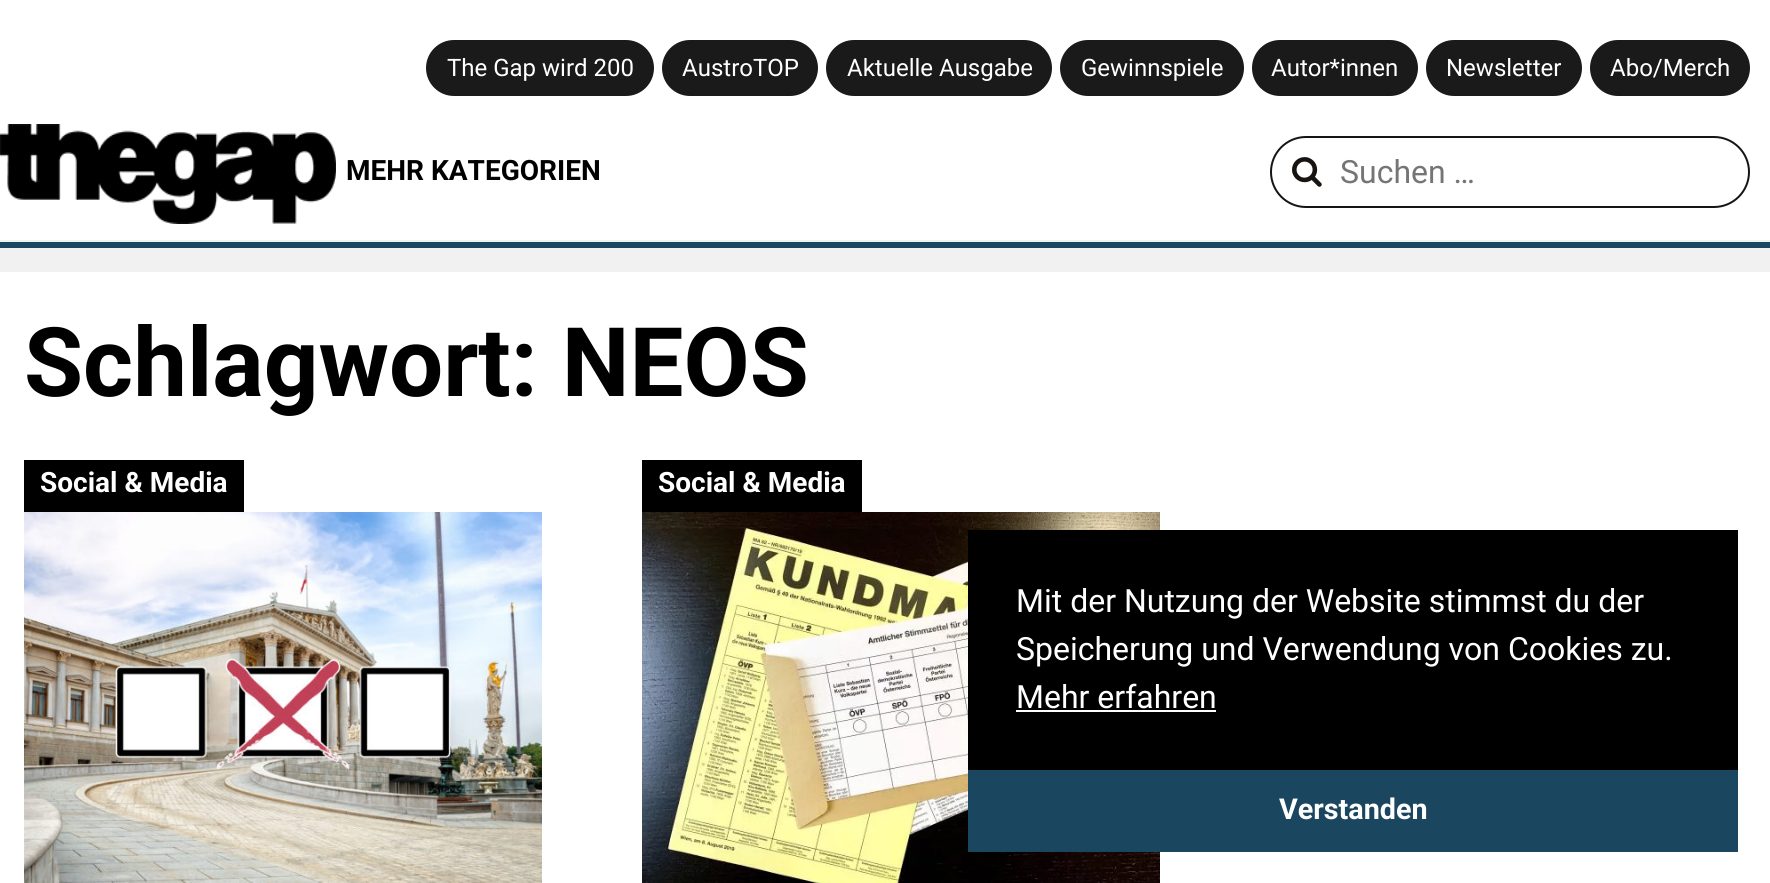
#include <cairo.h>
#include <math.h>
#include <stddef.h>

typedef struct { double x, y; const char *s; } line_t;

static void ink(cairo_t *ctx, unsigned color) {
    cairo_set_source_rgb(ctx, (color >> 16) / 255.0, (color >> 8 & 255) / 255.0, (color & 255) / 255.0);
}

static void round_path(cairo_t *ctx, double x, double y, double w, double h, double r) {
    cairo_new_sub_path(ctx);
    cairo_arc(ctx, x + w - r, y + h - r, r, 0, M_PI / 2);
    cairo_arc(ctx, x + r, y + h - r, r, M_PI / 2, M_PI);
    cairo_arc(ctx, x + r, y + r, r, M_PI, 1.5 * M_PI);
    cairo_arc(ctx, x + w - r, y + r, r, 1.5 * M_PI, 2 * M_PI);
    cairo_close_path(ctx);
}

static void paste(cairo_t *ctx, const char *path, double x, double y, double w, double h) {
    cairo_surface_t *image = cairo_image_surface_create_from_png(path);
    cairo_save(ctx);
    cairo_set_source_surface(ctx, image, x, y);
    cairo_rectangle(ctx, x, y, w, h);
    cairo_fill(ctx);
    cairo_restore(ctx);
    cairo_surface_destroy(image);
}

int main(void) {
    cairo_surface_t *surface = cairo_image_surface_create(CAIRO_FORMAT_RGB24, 1770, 883);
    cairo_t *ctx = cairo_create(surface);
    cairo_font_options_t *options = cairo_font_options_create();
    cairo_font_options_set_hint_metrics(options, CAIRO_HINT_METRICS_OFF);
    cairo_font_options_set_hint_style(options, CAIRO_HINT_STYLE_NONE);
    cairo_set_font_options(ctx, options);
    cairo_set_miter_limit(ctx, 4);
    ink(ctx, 0xF1F1F1);
    cairo_paint(ctx);
    ink(ctx, 0x1A465F);
    cairo_rectangle(ctx, 0, 242, 1770, 6);
    cairo_fill(ctx);
    ink(ctx, 0xFFFFFF);
    cairo_rectangle(ctx, 0, 0, 1770, 240);
    cairo_fill(ctx);
    ink(ctx, 0x1A1A1A);
    round_path(ctx, 426, 40, 228, 56, 28);
    cairo_fill(ctx);
    cairo_select_font_face(ctx, "Roboto", CAIRO_FONT_SLANT_NORMAL, CAIRO_FONT_WEIGHT_NORMAL);
    cairo_set_font_size(ctx, 24);
    ink(ctx, 0xFFFFFF);
    cairo_move_to(ctx, 447, 76);
    cairo_show_text(ctx, "The Gap wird 200");
    ink(ctx, 0x1A1A1A);
    round_path(ctx, 662, 40, 156, 56, 28);
    cairo_fill(ctx);
    ink(ctx, 0xFFFFFF);
    cairo_move_to(ctx, 682, 76);
    cairo_show_text(ctx, "AustroTOP");
    ink(ctx, 0x1A1A1A);
    round_path(ctx, 826, 40, 226, 56, 28);
    cairo_fill(ctx);
    ink(ctx, 0xFFFFFF);
    cairo_move_to(ctx, 847, 76);
    cairo_show_text(ctx, "Aktuelle Ausgabe");
    ink(ctx, 0x1A1A1A);
    round_path(ctx, 1060, 40, 184, 56, 28);
    cairo_fill(ctx);
    ink(ctx, 0xFFFFFF);
    cairo_move_to(ctx, 1081, 76);
    cairo_show_text(ctx, "Gewinnspiele");
    ink(ctx, 0x1A1A1A);
    round_path(ctx, 1252, 40, 166, 56, 28);
    cairo_fill(ctx);
    ink(ctx, 0xFFFFFF);
    cairo_move_to(ctx, 1271, 76);
    cairo_show_text(ctx, "Autor*innen");
    ink(ctx, 0x1A1A1A);
    round_path(ctx, 1426, 40, 156, 56, 28);
    cairo_fill(ctx);
    ink(ctx, 0xFFFFFF);
    cairo_move_to(ctx, 1446, 76);
    cairo_show_text(ctx, "Newsletter");
    ink(ctx, 0x1A1A1A);
    round_path(ctx, 1590, 40, 160, 56, 28);
    cairo_fill(ctx);
    ink(ctx, 0xFFFFFF);
    cairo_move_to(ctx, 1610, 76);
    cairo_show_text(ctx, "Abo/Merch");
    paste(ctx, "media/1.png", 0, 124, 336, 100);
    cairo_select_font_face(ctx, "Roboto", CAIRO_FONT_SLANT_NORMAL, CAIRO_FONT_WEIGHT_BOLD);
    cairo_set_font_size(ctx, 28);
    ink(ctx, 0x000000);
    cairo_move_to(ctx, 346, 180);
    cairo_show_text(ctx, "MEHR KATEGORIEN");
    round_path(ctx, 1271, 137, 478, 70, 35);
    ink(ctx, 0x171412);
    cairo_stroke(ctx);
    paste(ctx, "media/2.png", 1292, 157, 30, 30);
    cairo_select_font_face(ctx, "Roboto", CAIRO_FONT_SLANT_NORMAL, CAIRO_FONT_WEIGHT_NORMAL);
    cairo_set_font_size(ctx, 32);
    ink(ctx, 0x757575);
    cairo_move_to(ctx, 1340, 183);
    cairo_show_text(ctx, "Suchen …");
    ink(ctx, 0xFFFFFF);
    cairo_rectangle(ctx, 0, 272, 1770, 611);
    cairo_fill(ctx);
    cairo_select_font_face(ctx, "Roboto", CAIRO_FONT_SLANT_NORMAL, CAIRO_FONT_WEIGHT_BOLD);
    cairo_set_font_size(ctx, 96);
    ink(ctx, 0x000000);
    cairo_move_to(ctx, 24, 396);
    cairo_show_text(ctx, "Schlagwort: NEOS");
    cairo_rectangle(ctx, 24, 460, 220, 52);
    cairo_fill(ctx);
    cairo_set_font_size(ctx, 28);
    ink(ctx, 0xFFFFFF);
    cairo_move_to(ctx, 40, 492);
    cairo_show_text(ctx, "Social & Media");
    paste(ctx, "media/3.png", 24, 512, 518, 371);
    ink(ctx, 0x000000);
    cairo_rectangle(ctx, 642, 460, 220, 52);
    cairo_fill(ctx);
    ink(ctx, 0xFFFFFF);
    cairo_move_to(ctx, 658, 492);
    cairo_show_text(ctx, "Social & Media");
    paste(ctx, "media/4.png", 642, 512, 518, 371);
    ink(ctx, 0x000000);
    cairo_rectangle(ctx, 968, 530, 770, 240);
    cairo_fill(ctx);
    cairo_select_font_face(ctx, "Roboto", CAIRO_FONT_SLANT_NORMAL, CAIRO_FONT_WEIGHT_NORMAL);
    cairo_set_font_size(ctx, 32);
    ink(ctx, 0xFFFFFF);
    {
        static const line_t items[] = {
            {1016, 612, "Mit der Nutzung der Website stimmst du der"},
            {1016, 660, "Speicherung und Verwendung von Cookies zu."},
            {1016, 708, "Mehr erfahren"},
        };
        for (size_t i = 0; i < sizeof items / sizeof *items; i++) {
            cairo_move_to(ctx, items[i].x, items[i].y);
            cairo_show_text(ctx, items[i].s);
        }
    }
    cairo_rectangle(ctx, 1016, 710, 200, 2);
    cairo_fill(ctx);
    ink(ctx, 0x1A465F);
    cairo_rectangle(ctx, 968, 770, 770, 82);
    cairo_fill(ctx);
    cairo_select_font_face(ctx, "Roboto", CAIRO_FONT_SLANT_NORMAL, CAIRO_FONT_WEIGHT_BOLD);
    cairo_set_font_size(ctx, 28.75);
    ink(ctx, 0xFFFFFF);
    cairo_move_to(ctx, 1279, 819);
    cairo_show_text(ctx, "Verstanden");
    cairo_surface_write_to_png(surface, "image.png");
    cairo_font_options_destroy(options);
    cairo_destroy(ctx);
    cairo_surface_destroy(surface);
    return 0;
}
